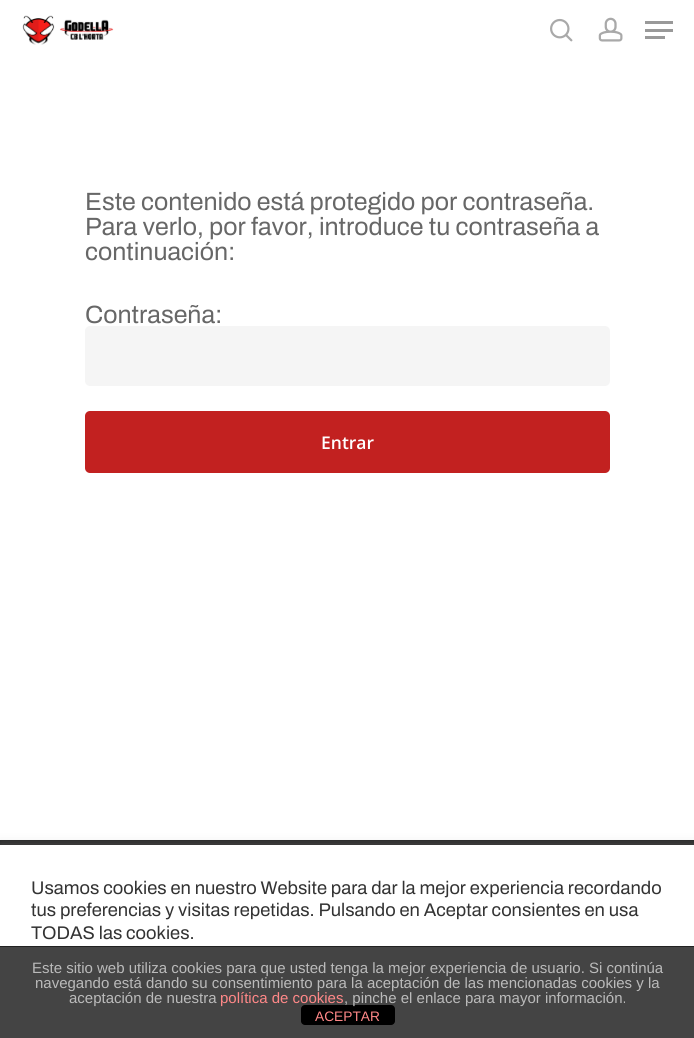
#include <cairo.h>
#include <math.h>
#include <stddef.h>

typedef struct { double x, y; const char *s; } line_t;
typedef struct { double x, y, w, h; unsigned color; } box_t;

static void ink(cairo_t *ctx, unsigned color) {
    cairo_set_source_rgb(ctx, (color >> 16) / 255.0, (color >> 8 & 255) / 255.0, (color & 255) / 255.0);
}

static void round_path(cairo_t *ctx, double x, double y, double w, double h, double r) {
    cairo_new_sub_path(ctx);
    cairo_arc(ctx, x + w - r, y + h - r, r, 0, M_PI / 2);
    cairo_arc(ctx, x + r, y + h - r, r, M_PI / 2, M_PI);
    cairo_arc(ctx, x + r, y + r, r, M_PI, 1.5 * M_PI);
    cairo_arc(ctx, x + w - r, y + r, r, 1.5 * M_PI, 2 * M_PI);
    cairo_close_path(ctx);
}

static void blur_box(cairo_t *ctx, double x, double y, double w, double h, double r, double blur, double alpha) {
    cairo_push_group_with_content(ctx, CAIRO_CONTENT_ALPHA);
    cairo_set_operator(ctx, CAIRO_OPERATOR_SOURCE);
    for (int i = 15; i >= -15 && fmin(w, h) + blur * i / 3 > 0; i -= 2) {
        double e = blur * i / 6;
        cairo_set_source_rgba(ctx, 0, 0, 0, alpha * erfc((i - 1) / 8.5) / 2);
        round_path(ctx, x - e, y - e, w + 2 * e, h + 2 * e, fmax(0, fmin(r + e + blur * .6, fmin(w, h) / 2 + e)));
        cairo_fill(ctx);
    }
    cairo_pattern_t *soft = cairo_pop_group(ctx);
    cairo_mask(ctx, soft);
    cairo_pattern_destroy(soft);
}

static void paste(cairo_t *ctx, const char *path, double x, double y, double w, double h) {
    cairo_surface_t *image = cairo_image_surface_create_from_png(path);
    cairo_save(ctx);
    cairo_set_source_surface(ctx, image, x, y);
    cairo_rectangle(ctx, x, y, w, h);
    cairo_fill(ctx);
    cairo_restore(ctx);
    cairo_surface_destroy(image);
}

int main(void) {
    cairo_surface_t *surface = cairo_image_surface_create(CAIRO_FORMAT_RGB24, 694, 1038);
    cairo_t *ctx = cairo_create(surface);
    cairo_font_options_t *options = cairo_font_options_create();
    cairo_font_options_set_hint_metrics(options, CAIRO_HINT_METRICS_OFF);
    cairo_font_options_set_hint_style(options, CAIRO_HINT_STYLE_NONE);
    cairo_set_font_options(ctx, options);
    cairo_set_miter_limit(ctx, 4);
    ink(ctx, 0xFFFFFF);
    cairo_paint(ctx);
    paste(ctx, "media/1.png", 22, 15, 92, 30);
    paste(ctx, "media/2.png", 550, 18, 23, 24);
    paste(ctx, "media/3.png", 598, 17, 25, 25);
    {
        static const box_t items[] = {
            {645, 21, 28, 3, 0x999999},
            {645, 36, 20, 3, 0x999999},
            {645, 29, 28, 3, 0x999999},
        };
        for (size_t i = 0; i < sizeof items / sizeof *items; i++) {
            ink(ctx, items[i].color);
            cairo_rectangle(ctx, items[i].x, items[i].y, items[i].w, items[i].h);
            cairo_fill(ctx);
        }
    }
    cairo_select_font_face(ctx, "Archivo SemiBold", CAIRO_FONT_SLANT_NORMAL, CAIRO_FONT_WEIGHT_NORMAL);
    cairo_set_font_size(ctx, 25);
    ink(ctx, 0x676767);
    {
        static const line_t items[] = {
            {85, 210, "Este contenido está protegido por contraseña."},
            {85, 235, "Para verlo, por favor, introduce tu contraseña a"},
            {85, 260, "continuación:"},
            {85, 323, "Contraseña:"},
        };
        for (size_t i = 0; i < sizeof items / sizeof *items; i++) {
            cairo_move_to(ctx, items[i].x, items[i].y);
            cairo_show_text(ctx, items[i].s);
        }
    }
    ink(ctx, 0xF5F5F5);
    round_path(ctx, 85, 326, 525, 60, 5);
    cairo_fill(ctx);
    ink(ctx, 0xC22120);
    round_path(ctx, 85, 411, 525, 62, 5);
    cairo_fill(ctx);
    cairo_select_font_face(ctx, "Open Sans SemiBold", CAIRO_FONT_SLANT_NORMAL, CAIRO_FONT_WEIGHT_NORMAL);
    cairo_set_font_size(ctx, 17.5);
    ink(ctx, 0xFFFFFF);
    cairo_move_to(ctx, 321, 449);
    cairo_show_text(ctx, "Entrar");
    ink(ctx, 0x252525);
    cairo_rectangle(ctx, 0, 840, 694, 5);
    cairo_fill(ctx);
    ink(ctx, 0xACABAB);
    blur_box(ctx, 0, 844, 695, 194, 0, 6, 0.3);
    ink(ctx, 0xFFFFFF);
    cairo_rectangle(ctx, 0, 845, 694, 101);
    cairo_fill(ctx);
    cairo_select_font_face(ctx, "Archivo SemiBold", CAIRO_FONT_SLANT_NORMAL, CAIRO_FONT_WEIGHT_NORMAL);
    cairo_set_font_size(ctx, 18.35);
    ink(ctx, 0x333333);
    {
        static const line_t items[] = {
            {31, 894, "Usamos cookies en nuestro Website para dar la mejor experiencia recordando"},
            {31, 916, "tus preferencias y visitas repetidas. Pulsando en Aceptar consientes en usa"},
            {31, 939, "TODAS las cookies."},
        };
        for (size_t i = 0; i < sizeof items / sizeof *items; i++) {
            cairo_move_to(ctx, items[i].x, items[i].y);
            cairo_show_text(ctx, items[i].s);
        }
    }
    ink(ctx, 0x444444);
    cairo_rectangle(ctx, 0, 947, 694, 91);
    cairo_fill(ctx);
    ink(ctx, 0x222222);
    cairo_rectangle(ctx, 0, 946, 694, 1);
    cairo_fill(ctx);
    cairo_select_font_face(ctx, "Liberation Sans", CAIRO_FONT_SLANT_NORMAL, CAIRO_FONT_WEIGHT_NORMAL);
    cairo_set_font_size(ctx, 15);
    ink(ctx, 0xBBBBBB);
    {
        static const line_t items[] = {
            {32, 973, "Este sitio web utiliza cookies para que usted tenga la mejor experiencia de usuario. Si continúa"},
            {35, 988, "navegando está dando su consentimiento para la aceptación de las mencionadas cookies y la"},
            {69, 1003, "aceptación de nuestra"},
        };
        for (size_t i = 0; i < sizeof items / sizeof *items; i++) {
            cairo_move_to(ctx, items[i].x, items[i].y);
            cairo_show_text(ctx, items[i].s);
        }
    }
    ink(ctx, 0x000000);
    round_path(ctx, 301, 1005, 94, 20, 4);
    cairo_fill(ctx);
    ink(ctx, 0xFF8888);
    cairo_move_to(ctx, 220, 1003);
    cairo_show_text(ctx, "política de cookies");
    ink(ctx, 0xBBBBBB);
    cairo_move_to(ctx, 344, 1003);
    cairo_show_text(ctx, ", pinche el enlace para mayor información.");
    cairo_set_font_size(ctx, 13.75);
    ink(ctx, 0xFF8888);
    cairo_move_to(ctx, 315, 1021);
    cairo_show_text(ctx, "ACEPTAR");
    cairo_surface_write_to_png(surface, "image.png");
    cairo_font_options_destroy(options);
    cairo_destroy(ctx);
    cairo_surface_destroy(surface);
    return 0;
}
